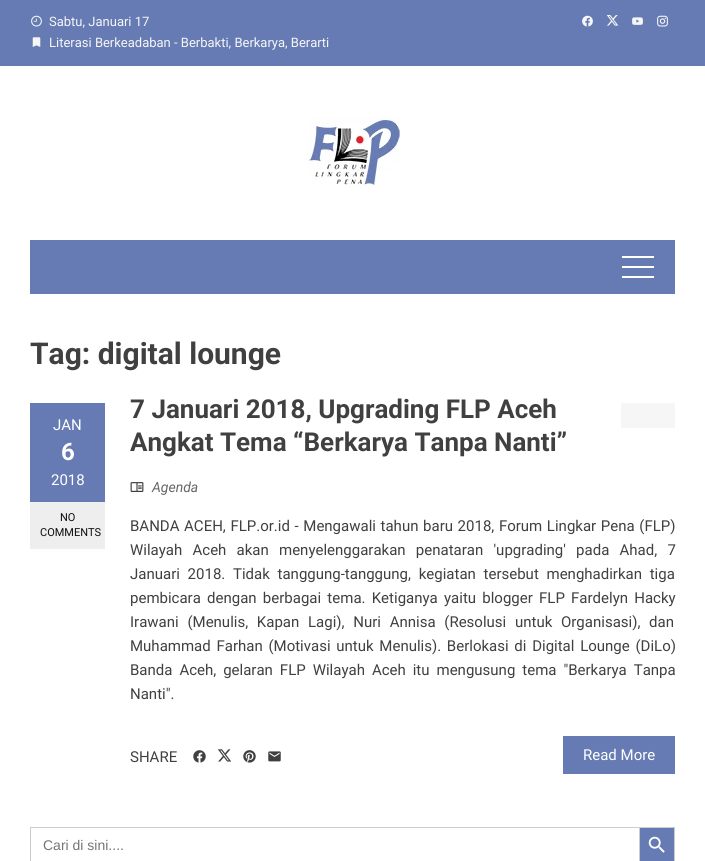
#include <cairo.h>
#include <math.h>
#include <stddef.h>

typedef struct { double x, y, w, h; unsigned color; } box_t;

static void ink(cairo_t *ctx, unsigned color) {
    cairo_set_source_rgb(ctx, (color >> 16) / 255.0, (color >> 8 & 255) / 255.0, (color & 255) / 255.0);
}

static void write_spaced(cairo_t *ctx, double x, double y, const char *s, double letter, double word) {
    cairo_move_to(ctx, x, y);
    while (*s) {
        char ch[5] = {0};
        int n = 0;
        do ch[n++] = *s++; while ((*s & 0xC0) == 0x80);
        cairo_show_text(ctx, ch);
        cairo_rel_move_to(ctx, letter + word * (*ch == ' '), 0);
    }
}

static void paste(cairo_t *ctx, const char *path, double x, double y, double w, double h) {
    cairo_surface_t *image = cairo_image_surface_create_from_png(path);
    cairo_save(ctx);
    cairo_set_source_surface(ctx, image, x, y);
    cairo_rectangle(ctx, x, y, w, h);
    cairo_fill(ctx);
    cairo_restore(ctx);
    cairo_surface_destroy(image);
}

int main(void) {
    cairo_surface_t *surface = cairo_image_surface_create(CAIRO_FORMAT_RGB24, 705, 861);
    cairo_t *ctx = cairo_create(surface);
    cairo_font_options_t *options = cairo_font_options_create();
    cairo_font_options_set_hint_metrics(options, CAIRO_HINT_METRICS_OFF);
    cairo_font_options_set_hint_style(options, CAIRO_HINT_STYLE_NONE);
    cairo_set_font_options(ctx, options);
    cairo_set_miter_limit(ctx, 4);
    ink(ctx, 0xFFFFFF);
    cairo_paint(ctx);
    ink(ctx, 0x667BB4);
    cairo_rectangle(ctx, 0, 0, 705, 66);
    cairo_fill(ctx);
    paste(ctx, "media/1.png", 31, 15, 11, 12);
    cairo_select_font_face(ctx, "Roboto", CAIRO_FONT_SLANT_NORMAL, CAIRO_FONT_WEIGHT_NORMAL);
    cairo_set_font_size(ctx, 13);
    ink(ctx, 0xF6F6F6);
    cairo_move_to(ctx, 49, 26);
    cairo_show_text(ctx, "Sabtu, Januari 17");
    paste(ctx, "media/2.png", 32, 37, 9, 10);
    cairo_move_to(ctx, 49, 47);
    cairo_show_text(ctx, "Literasi Berkeadaban - Berbakti, Berkarya, Berarti");
    paste(ctx, "media/3.png", 582, 15, 11, 12);
    paste(ctx, "media/4.png", 606, 15, 13, 11);
    paste(ctx, "media/5.png", 632, 17, 11, 8);
    paste(ctx, "media/6.png", 657, 15, 11, 12);
    paste(ctx, "media/7.png", 307, 116, 93, 72);
    {
        static const box_t items[] = {
            {30, 240, 645, 54, 0x667BB4},
            {622, 256, 32, 2, 0xFFFFFF},
            {622, 276, 32, 2, 0xFFFFFF},
            {622, 266, 32, 2, 0xFFFFFF},
        };
        for (size_t i = 0; i < sizeof items / sizeof *items; i++) {
            ink(ctx, items[i].color);
            cairo_rectangle(ctx, items[i].x, items[i].y, items[i].w, items[i].h);
            cairo_fill(ctx);
        }
    }
    cairo_select_font_face(ctx, "Roboto", CAIRO_FONT_SLANT_NORMAL, CAIRO_FONT_WEIGHT_BOLD);
    cairo_set_font_size(ctx, 30);
    ink(ctx, 0x404040);
    cairo_move_to(ctx, 30, 364);
    cairo_show_text(ctx, "Tag: digital lounge");
    ink(ctx, 0x667BB4);
    cairo_rectangle(ctx, 30, 403, 75, 99);
    cairo_fill(ctx);
    cairo_select_font_face(ctx, "Roboto", CAIRO_FONT_SLANT_NORMAL, CAIRO_FONT_WEIGHT_NORMAL);
    cairo_set_font_size(ctx, 15);
    ink(ctx, 0xFFFFFF);
    cairo_move_to(ctx, 53, 430);
    cairo_show_text(ctx, "JAN");
    cairo_select_font_face(ctx, "Roboto", CAIRO_FONT_SLANT_NORMAL, CAIRO_FONT_WEIGHT_BOLD);
    cairo_set_font_size(ctx, 24);
    cairo_move_to(ctx, 61, 460);
    cairo_show_text(ctx, "6");
    cairo_select_font_face(ctx, "Roboto", CAIRO_FONT_SLANT_NORMAL, CAIRO_FONT_WEIGHT_NORMAL);
    cairo_set_font_size(ctx, 15);
    cairo_move_to(ctx, 51, 485);
    cairo_show_text(ctx, "2018");
    ink(ctx, 0xEEEEEE);
    cairo_rectangle(ctx, 30, 502, 75, 47);
    cairo_fill(ctx);
    cairo_set_font_size(ctx, 11);
    ink(ctx, 0x0E0E0E);
    cairo_move_to(ctx, 60, 521);
    cairo_show_text(ctx, "NO");
    cairo_move_to(ctx, 40, 536);
    cairo_show_text(ctx, "COMMENTS");
    cairo_select_font_face(ctx, "Roboto", CAIRO_FONT_SLANT_NORMAL, CAIRO_FONT_WEIGHT_BOLD);
    cairo_set_font_size(ctx, 26);
    ink(ctx, 0x404040);
    cairo_move_to(ctx, 130, 418);
    cairo_show_text(ctx, "7 Januari 2018, Upgrading FLP Aceh");
    cairo_move_to(ctx, 130, 451);
    cairo_show_text(ctx, "Angkat Tema “Berkarya Tanpa Nanti”");
    ink(ctx, 0xF6F6F6);
    cairo_rectangle(ctx, 621, 403, 54, 25);
    cairo_fill(ctx);
    paste(ctx, "media/8.png", 130, 482, 14, 10);
    cairo_select_font_face(ctx, "Roboto", CAIRO_FONT_SLANT_ITALIC, CAIRO_FONT_WEIGHT_NORMAL);
    cairo_set_font_size(ctx, 14);
    ink(ctx, 0x666666);
    cairo_move_to(ctx, 152, 492);
    cairo_show_text(ctx, "Agenda");
    cairo_select_font_face(ctx, "Roboto", CAIRO_FONT_SLANT_NORMAL, CAIRO_FONT_WEIGHT_NORMAL);
    cairo_set_font_size(ctx, 15);
    ink(ctx, 0x404040);
    write_spaced(ctx, 130, 531, "BANDA ACEH, FLP.or.id - Mengawali tahun baru 2018, Forum Lingkar Pena (FLP)", 0, 0.9);
    write_spaced(ctx, 130, 555, "Wilayah Aceh akan menyelenggarakan penataran 'upgrading' pada Ahad, 7", 0, 6.5);
    write_spaced(ctx, 130, 579, "Januari 2018. Tidak tanggung-tanggung, kegiatan tersebut menghadirkan tiga", 0, 4);
    write_spaced(ctx, 130, 603, "pembicara dengan berbagai tema. Ketiganya yaitu blogger FLP Fardelyn Hacky", 0, 2.5);
    write_spaced(ctx, 130, 627, "Irawani (Menulis, Kapan Lagi), Nuri Annisa (Resolusi untuk Organisasi), dan", 0, 5);
    write_spaced(ctx, 130, 651, "Muhammad Farhan (Motivasi untuk Menulis). Berlokasi di Digital Lounge (DiLo)", 0, 2);
    write_spaced(ctx, 130, 675, "Banda Aceh, gelaran FLP Wilayah Aceh itu mengusung tema \"Berkarya Tanpa", 0, 3.25);
    cairo_move_to(ctx, 130, 699);
    cairo_show_text(ctx, "Nanti\".");
    cairo_move_to(ctx, 130, 762);
    cairo_show_text(ctx, "SHARE");
    paste(ctx, "media/9.png", 193, 750, 13, 13);
    paste(ctx, "media/10.png", 217, 749, 15, 13);
    paste(ctx, "media/11.png", 243, 750, 13, 13);
    paste(ctx, "media/12.png", 268, 751, 13, 11);
    ink(ctx, 0x667BB4);
    cairo_rectangle(ctx, 563, 736, 112, 38);
    cairo_fill(ctx);
    ink(ctx, 0xFFFFFF);
    cairo_move_to(ctx, 583, 760);
    cairo_show_text(ctx, "Read More");
    ink(ctx, 0xCCCCCC);
    cairo_rectangle(ctx, 30, 827, 609, 1);
    cairo_fill(ctx);
    cairo_rectangle(ctx, 30, 827, 1, 34);
    cairo_fill(ctx);
    cairo_select_font_face(ctx, "Liberation Sans", CAIRO_FONT_SLANT_NORMAL, CAIRO_FONT_WEIGHT_NORMAL);
    cairo_set_font_size(ctx, 14);
    ink(ctx, 0x757575);
    cairo_move_to(ctx, 43, 850);
    cairo_show_text(ctx, "Cari di sini....");
    ink(ctx, 0x667BB4);
    cairo_rectangle(ctx, 639.5, 827.5, 35, 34);
    cairo_fill_preserve(ctx);
    ink(ctx, 0xCCCCCC);
    cairo_set_line_width(ctx, 1);
    cairo_stroke(ctx);
    paste(ctx, "media/13.png", 648, 836, 17, 17);
    cairo_surface_write_to_png(surface, "image.png");
    cairo_font_options_destroy(options);
    cairo_destroy(ctx);
    cairo_surface_destroy(surface);
    return 0;
}
